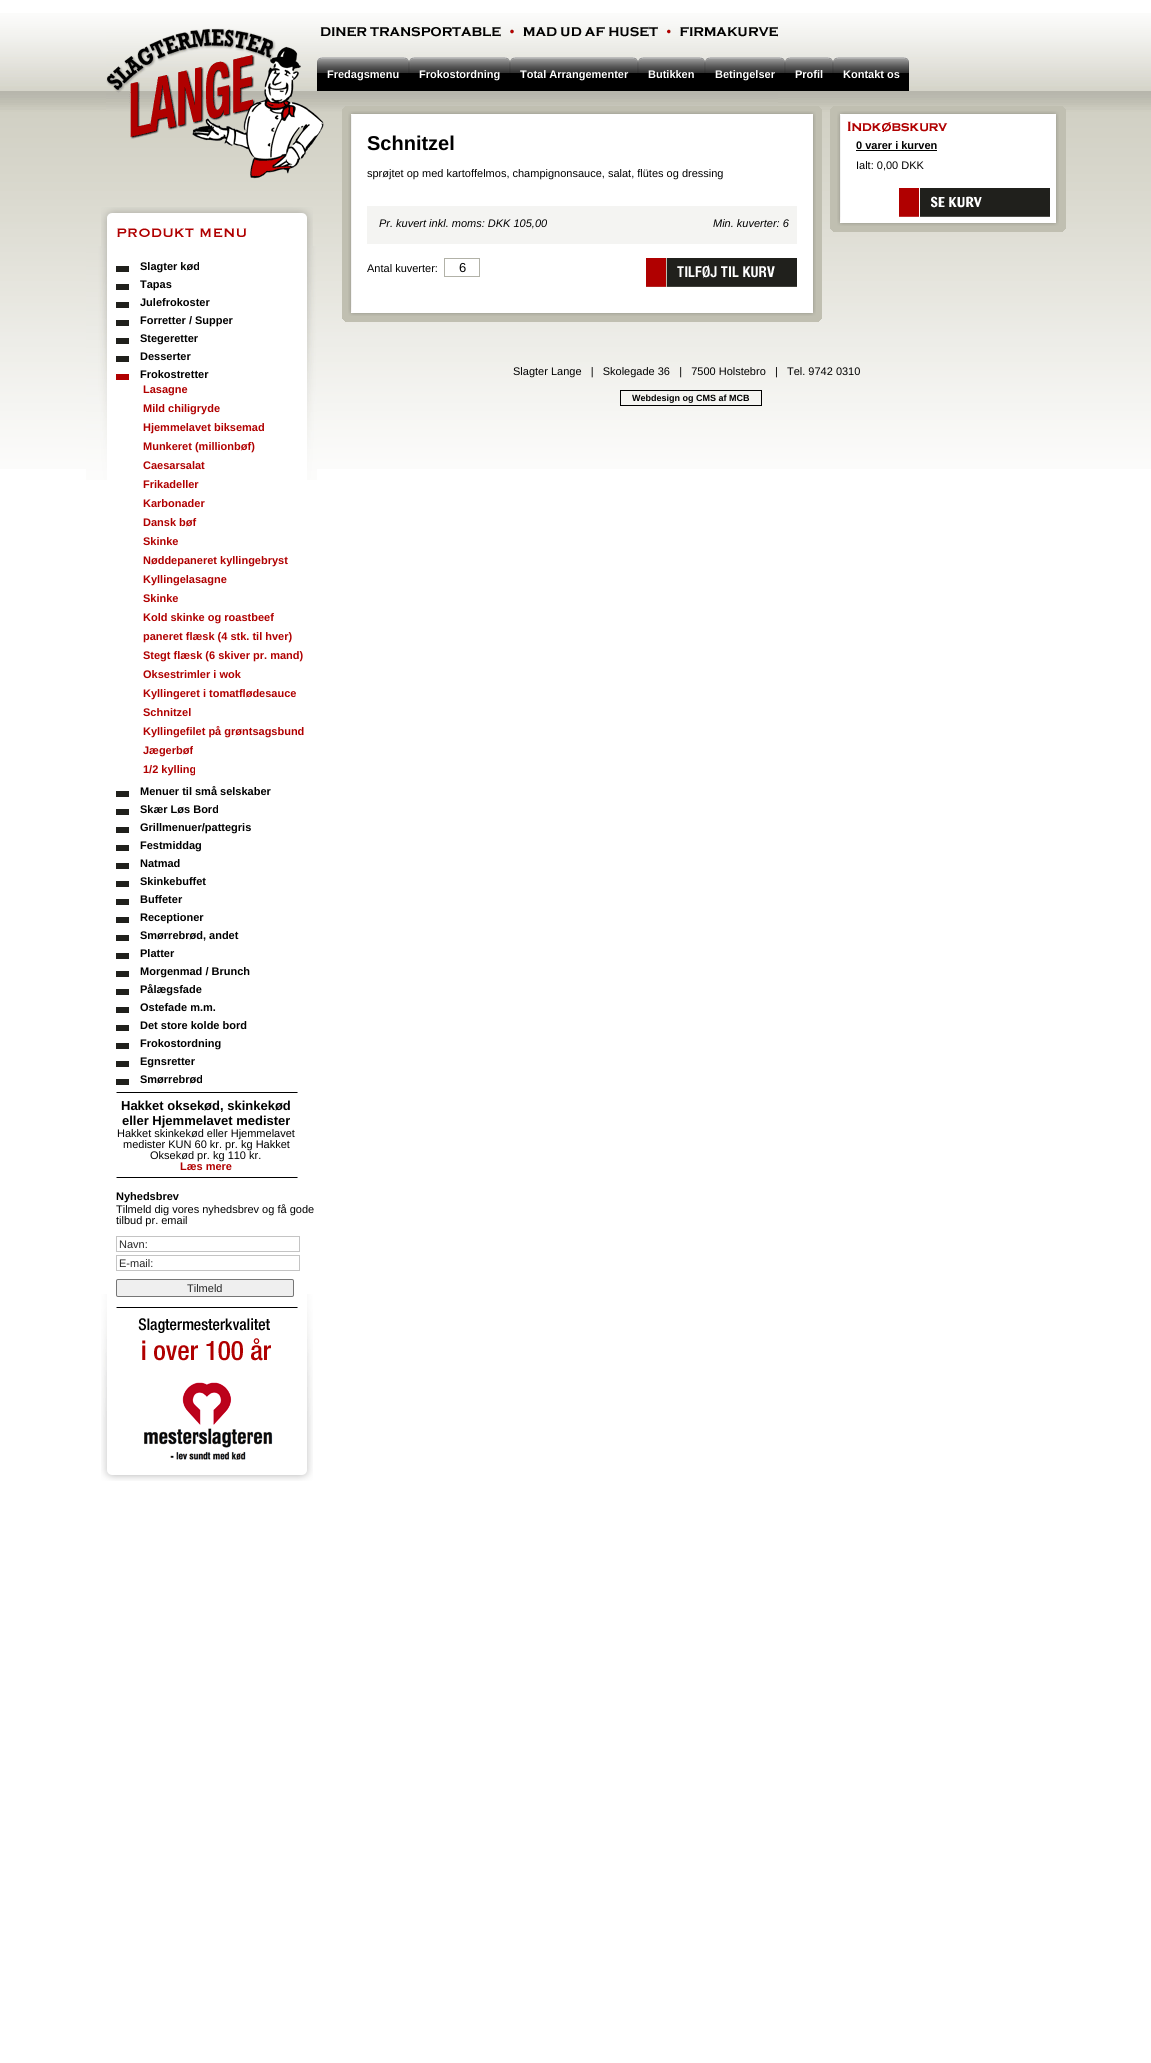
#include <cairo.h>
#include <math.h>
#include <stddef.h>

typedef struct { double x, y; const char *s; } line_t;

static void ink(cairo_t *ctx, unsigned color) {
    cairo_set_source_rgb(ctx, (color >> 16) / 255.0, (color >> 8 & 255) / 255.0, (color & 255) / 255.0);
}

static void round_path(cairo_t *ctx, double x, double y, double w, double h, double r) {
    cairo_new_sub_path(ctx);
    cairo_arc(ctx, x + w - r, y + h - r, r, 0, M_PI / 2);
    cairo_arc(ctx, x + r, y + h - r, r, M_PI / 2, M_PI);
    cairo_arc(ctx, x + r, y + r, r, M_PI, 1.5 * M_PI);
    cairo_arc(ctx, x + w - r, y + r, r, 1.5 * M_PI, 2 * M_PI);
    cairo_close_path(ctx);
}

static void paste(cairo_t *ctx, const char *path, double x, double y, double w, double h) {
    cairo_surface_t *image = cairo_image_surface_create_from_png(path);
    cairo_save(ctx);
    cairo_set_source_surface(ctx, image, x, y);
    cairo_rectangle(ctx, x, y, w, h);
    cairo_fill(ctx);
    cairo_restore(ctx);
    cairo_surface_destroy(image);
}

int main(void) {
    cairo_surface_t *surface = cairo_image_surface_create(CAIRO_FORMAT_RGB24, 1151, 2063);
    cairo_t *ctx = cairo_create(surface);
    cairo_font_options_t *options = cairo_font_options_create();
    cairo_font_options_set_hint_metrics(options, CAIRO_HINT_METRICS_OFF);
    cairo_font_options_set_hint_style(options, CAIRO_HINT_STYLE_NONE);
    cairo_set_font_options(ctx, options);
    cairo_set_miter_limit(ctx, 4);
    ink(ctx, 0xFFFFFF);
    cairo_paint(ctx);
    paste(ctx, "media/1.png", 0, 13, 1151, 456);
    paste(ctx, "media/2.png", 106, 26, 672, 153);
    paste(ctx, "media/3.png", 101, 207, 212, 39);
    paste(ctx, "media/4.png", 86, 246, 231, 234);
    ink(ctx, 0x20201C);
    cairo_rectangle(ctx, 116, 266, 13, 6);
    cairo_fill(ctx);
    cairo_select_font_face(ctx, "Liberation Sans", CAIRO_FONT_SLANT_NORMAL, CAIRO_FONT_WEIGHT_BOLD);
    cairo_set_font_size(ctx, 11);
    ink(ctx, 0x000000);
    cairo_move_to(ctx, 140, 270);
    cairo_show_text(ctx, "Slagter kød");
    ink(ctx, 0x20201C);
    cairo_rectangle(ctx, 116, 284, 13, 6);
    cairo_fill(ctx);
    ink(ctx, 0x000000);
    cairo_move_to(ctx, 140, 288);
    cairo_show_text(ctx, "Tapas");
    ink(ctx, 0x20201C);
    cairo_rectangle(ctx, 116, 302, 13, 6);
    cairo_fill(ctx);
    ink(ctx, 0x000000);
    cairo_move_to(ctx, 140, 306);
    cairo_show_text(ctx, "Julefrokoster");
    ink(ctx, 0x20201C);
    cairo_rectangle(ctx, 116, 320, 13, 6);
    cairo_fill(ctx);
    ink(ctx, 0x000000);
    cairo_move_to(ctx, 140, 324);
    cairo_show_text(ctx, "Forretter / Supper");
    ink(ctx, 0x20201C);
    cairo_rectangle(ctx, 116, 338, 13, 6);
    cairo_fill(ctx);
    ink(ctx, 0x000000);
    cairo_move_to(ctx, 140, 342);
    cairo_show_text(ctx, "Stegeretter");
    ink(ctx, 0x20201C);
    cairo_rectangle(ctx, 116, 356, 13, 6);
    cairo_fill(ctx);
    ink(ctx, 0x000000);
    cairo_move_to(ctx, 140, 360);
    cairo_show_text(ctx, "Desserter");
    ink(ctx, 0xB00000);
    cairo_rectangle(ctx, 116, 374, 13, 6);
    cairo_fill(ctx);
    ink(ctx, 0x000000);
    cairo_move_to(ctx, 140, 378);
    cairo_show_text(ctx, "Frokostretter");
    ink(ctx, 0xB00000);
    {
        static const line_t items[] = {
            {143, 393, "Lasagne"},
            {143, 412, "Mild chiligryde"},
            {143, 431, "Hjemmelavet biksemad"},
            {143, 450, "Munkeret (millionbøf)"},
            {143, 469, "Caesarsalat"},
            {143, 488, "Frikadeller"},
            {143, 507, "Karbonader"},
            {143, 526, "Dansk bøf"},
            {143, 545, "Skinke"},
            {143, 564, "Nøddepaneret kyllingebryst"},
            {143, 583, "Kyllingelasagne"},
            {143, 602, "Skinke"},
            {143, 621, "Kold skinke og roastbeef"},
            {143, 640, "paneret flæsk (4 stk. til hver)"},
            {143, 659, "Stegt flæsk (6 skiver pr. mand)"},
            {143, 678, "Oksestrimler i wok"},
            {143, 697, "Kyllingeret i tomatflødesauce"},
            {143, 716, "Schnitzel"},
            {143, 735, "Kyllingefilet på grøntsagsbund"},
            {143, 754, "Jægerbøf"},
            {143, 773, "1/2 kylling"},
        };
        for (size_t i = 0; i < sizeof items / sizeof *items; i++) {
            cairo_move_to(ctx, items[i].x, items[i].y);
            cairo_show_text(ctx, items[i].s);
        }
    }
    ink(ctx, 0x20201C);
    cairo_rectangle(ctx, 116, 791, 13, 6);
    cairo_fill(ctx);
    ink(ctx, 0x000000);
    cairo_move_to(ctx, 140, 795);
    cairo_show_text(ctx, "Menuer til små selskaber");
    ink(ctx, 0x20201C);
    cairo_rectangle(ctx, 116, 809, 13, 6);
    cairo_fill(ctx);
    ink(ctx, 0x000000);
    cairo_move_to(ctx, 140, 813);
    cairo_show_text(ctx, "Skær Løs Bord");
    ink(ctx, 0x20201C);
    cairo_rectangle(ctx, 116, 827, 13, 6);
    cairo_fill(ctx);
    ink(ctx, 0x000000);
    cairo_move_to(ctx, 140, 831);
    cairo_show_text(ctx, "Grillmenuer/pattegris");
    ink(ctx, 0x20201C);
    cairo_rectangle(ctx, 116, 845, 13, 6);
    cairo_fill(ctx);
    ink(ctx, 0x000000);
    cairo_move_to(ctx, 140, 849);
    cairo_show_text(ctx, "Festmiddag");
    ink(ctx, 0x20201C);
    cairo_rectangle(ctx, 116, 863, 13, 6);
    cairo_fill(ctx);
    ink(ctx, 0x000000);
    cairo_move_to(ctx, 140, 867);
    cairo_show_text(ctx, "Natmad");
    ink(ctx, 0x20201C);
    cairo_rectangle(ctx, 116, 881, 13, 6);
    cairo_fill(ctx);
    ink(ctx, 0x000000);
    cairo_move_to(ctx, 140, 885);
    cairo_show_text(ctx, "Skinkebuffet");
    ink(ctx, 0x20201C);
    cairo_rectangle(ctx, 116, 899, 13, 6);
    cairo_fill(ctx);
    ink(ctx, 0x000000);
    cairo_move_to(ctx, 140, 903);
    cairo_show_text(ctx, "Buffeter");
    ink(ctx, 0x20201C);
    cairo_rectangle(ctx, 116, 917, 13, 6);
    cairo_fill(ctx);
    ink(ctx, 0x000000);
    cairo_move_to(ctx, 140, 921);
    cairo_show_text(ctx, "Receptioner");
    ink(ctx, 0x20201C);
    cairo_rectangle(ctx, 116, 935, 13, 6);
    cairo_fill(ctx);
    ink(ctx, 0x000000);
    cairo_move_to(ctx, 140, 939);
    cairo_show_text(ctx, "Smørrebrød, andet");
    ink(ctx, 0x20201C);
    cairo_rectangle(ctx, 116, 953, 13, 6);
    cairo_fill(ctx);
    ink(ctx, 0x000000);
    cairo_move_to(ctx, 140, 957);
    cairo_show_text(ctx, "Platter");
    ink(ctx, 0x20201C);
    cairo_rectangle(ctx, 116, 971, 13, 6);
    cairo_fill(ctx);
    ink(ctx, 0x000000);
    cairo_move_to(ctx, 140, 975);
    cairo_show_text(ctx, "Morgenmad / Brunch");
    ink(ctx, 0x20201C);
    cairo_rectangle(ctx, 116, 989, 13, 6);
    cairo_fill(ctx);
    ink(ctx, 0x000000);
    cairo_move_to(ctx, 140, 993);
    cairo_show_text(ctx, "Pålægsfade");
    ink(ctx, 0x20201C);
    cairo_rectangle(ctx, 116, 1007, 13, 6);
    cairo_fill(ctx);
    ink(ctx, 0x000000);
    cairo_move_to(ctx, 140, 1011);
    cairo_show_text(ctx, "Ostefade m.m.");
    ink(ctx, 0x20201C);
    cairo_rectangle(ctx, 116, 1025, 13, 6);
    cairo_fill(ctx);
    ink(ctx, 0x000000);
    cairo_move_to(ctx, 140, 1029);
    cairo_show_text(ctx, "Det store kolde bord");
    ink(ctx, 0x20201C);
    cairo_rectangle(ctx, 116, 1043, 13, 6);
    cairo_fill(ctx);
    ink(ctx, 0x000000);
    cairo_move_to(ctx, 140, 1047);
    cairo_show_text(ctx, "Frokostordning");
    ink(ctx, 0x20201C);
    cairo_rectangle(ctx, 116, 1061, 13, 6);
    cairo_fill(ctx);
    ink(ctx, 0x000000);
    cairo_move_to(ctx, 140, 1065);
    cairo_show_text(ctx, "Egnsretter");
    ink(ctx, 0x20201C);
    cairo_rectangle(ctx, 116, 1079, 13, 6);
    cairo_fill(ctx);
    ink(ctx, 0x000000);
    cairo_move_to(ctx, 140, 1083);
    cairo_show_text(ctx, "Smørrebrød");
    paste(ctx, "media/5.png", 101, 1294, 212, 168);
    paste(ctx, "media/6.png", 116, 1092, 182, 1);
    cairo_set_font_size(ctx, 13);
    cairo_move_to(ctx, 121, 1110);
    cairo_show_text(ctx, "Hakket oksekød, skinkekød");
    cairo_move_to(ctx, 122, 1125);
    cairo_show_text(ctx, "eller Hjemmelavet medister");
    cairo_select_font_face(ctx, "Liberation Sans", CAIRO_FONT_SLANT_NORMAL, CAIRO_FONT_WEIGHT_NORMAL);
    cairo_set_font_size(ctx, 11);
    {
        static const line_t items[] = {
            {117, 1137, "Hakket skinkekød eller Hjemmelavet"},
            {123, 1148, "medister KUN 60 kr. pr. kg Hakket"},
            {150, 1159, "Oksekød pr. kg 110 kr."},
        };
        for (size_t i = 0; i < sizeof items / sizeof *items; i++) {
            cairo_move_to(ctx, items[i].x, items[i].y);
            cairo_show_text(ctx, items[i].s);
        }
    }
    cairo_select_font_face(ctx, "Liberation Sans", CAIRO_FONT_SLANT_NORMAL, CAIRO_FONT_WEIGHT_BOLD);
    ink(ctx, 0xB00000);
    cairo_move_to(ctx, 180, 1170);
    cairo_show_text(ctx, "Læs mere");
    paste(ctx, "media/6.png", 116, 1177, 182, 1);
    ink(ctx, 0x000000);
    cairo_move_to(ctx, 116, 1200);
    cairo_show_text(ctx, "Nyhedsbrev");
    cairo_select_font_face(ctx, "Liberation Sans", CAIRO_FONT_SLANT_NORMAL, CAIRO_FONT_WEIGHT_NORMAL);
    cairo_move_to(ctx, 116, 1213);
    cairo_show_text(ctx, "Tilmeld dig vores nyhedsbrev og få gode");
    cairo_move_to(ctx, 116, 1224);
    cairo_show_text(ctx, "tilbud pr. email");
    cairo_rectangle(ctx, 116.5, 1236.5, 183, 15);
    ink(ctx, 0xC4C4C4);
    cairo_set_line_width(ctx, 1);
    cairo_stroke(ctx);
    ink(ctx, 0x272727);
    cairo_move_to(ctx, 119, 1248);
    cairo_show_text(ctx, "Navn:");
    cairo_rectangle(ctx, 116.5, 1255.5, 183, 15);
    ink(ctx, 0xC4C4C4);
    cairo_stroke(ctx);
    ink(ctx, 0x272727);
    cairo_move_to(ctx, 119, 1267);
    cairo_show_text(ctx, "E-mail:");
    ink(ctx, 0xEFEFEF);
    round_path(ctx, 116.5, 1279.5, 177, 17, 1.5);
    cairo_fill_preserve(ctx);
    ink(ctx, 0x767676);
    cairo_stroke(ctx);
    ink(ctx, 0x272727);
    cairo_move_to(ctx, 187, 1292);
    cairo_show_text(ctx, "Tilmeld");
    paste(ctx, "media/6.png", 116, 1307, 182, 1);
    paste(ctx, "media/7.png", 138, 1318, 135, 142);
    paste(ctx, "media/8.png", 101, 1462, 212, 19);
    paste(ctx, "media/9.png", 317, 57, 5, 34);
    paste(ctx, "media/10.png", 322, 57, 82, 34);
    cairo_select_font_face(ctx, "Liberation Sans", CAIRO_FONT_SLANT_NORMAL, CAIRO_FONT_WEIGHT_BOLD);
    ink(ctx, 0xFFFFFF);
    cairo_move_to(ctx, 327, 78);
    cairo_show_text(ctx, "Fredagsmenu");
    paste(ctx, "media/11.png", 404, 57, 5, 34);
    paste(ctx, "media/9.png", 409, 57, 5, 34);
    paste(ctx, "media/12.png", 414, 57, 91, 34);
    cairo_move_to(ctx, 419, 78);
    cairo_show_text(ctx, "Frokostordning");
    paste(ctx, "media/11.png", 505, 57, 5, 34);
    paste(ctx, "media/9.png", 510, 57, 5, 34);
    paste(ctx, "media/13.png", 515, 57, 118, 34);
    cairo_move_to(ctx, 520, 78);
    cairo_show_text(ctx, "Total Arrangementer");
    paste(ctx, "media/11.png", 633, 57, 5, 34);
    paste(ctx, "media/9.png", 638, 57, 5, 34);
    paste(ctx, "media/14.png", 643, 57, 57, 34);
    cairo_move_to(ctx, 648, 78);
    cairo_show_text(ctx, "Butikken");
    paste(ctx, "media/11.png", 700, 57, 5, 34);
    paste(ctx, "media/9.png", 705, 57, 5, 34);
    paste(ctx, "media/15.png", 710, 57, 70, 34);
    cairo_move_to(ctx, 715, 78);
    cairo_show_text(ctx, "Betingelser");
    paste(ctx, "media/11.png", 780, 57, 5, 34);
    paste(ctx, "media/9.png", 785, 57, 5, 34);
    paste(ctx, "media/16.png", 790, 57, 38, 34);
    cairo_move_to(ctx, 795, 78);
    cairo_show_text(ctx, "Profil");
    paste(ctx, "media/11.png", 828, 57, 5, 34);
    paste(ctx, "media/9.png", 833, 57, 5, 34);
    paste(ctx, "media/17.png", 838, 57, 66, 34);
    cairo_move_to(ctx, 843, 78);
    cairo_show_text(ctx, "Kontakt os");
    paste(ctx, "media/11.png", 904, 57, 5, 34);
    paste(ctx, "media/18.png", 342, 106, 480, 5);
    ink(ctx, 0xC0BFB1);
    cairo_rectangle(ctx, 342, 111, 480, 206);
    cairo_fill(ctx);
    paste(ctx, "media/19.png", 348, 111, 468, 9);
    paste(ctx, "media/20.png", 348, 120, 9, 187);
    ink(ctx, 0xFFFFFF);
    cairo_rectangle(ctx, 357, 120, 450, 187);
    cairo_fill(ctx);
    cairo_set_font_size(ctx, 20);
    ink(ctx, 0x000000);
    cairo_move_to(ctx, 367, 150);
    cairo_show_text(ctx, "Schnitzel");
    cairo_select_font_face(ctx, "Liberation Sans", CAIRO_FONT_SLANT_NORMAL, CAIRO_FONT_WEIGHT_NORMAL);
    cairo_set_font_size(ctx, 11);
    cairo_move_to(ctx, 367, 177);
    cairo_show_text(ctx, "sprøjtet op med kartoffelmos, champignonsauce, salat, flütes og dressing");
    ink(ctx, 0xF4F4F2);
    cairo_rectangle(ctx, 367, 206, 430, 38);
    cairo_fill(ctx);
    cairo_select_font_face(ctx, "Liberation Sans", CAIRO_FONT_SLANT_ITALIC, CAIRO_FONT_WEIGHT_NORMAL);
    ink(ctx, 0x000000);
    cairo_move_to(ctx, 379, 227);
    cairo_show_text(ctx, "Pr. kuvert inkl. moms: DKK 105,00");
    cairo_move_to(ctx, 713, 227);
    cairo_show_text(ctx, "Min. kuverter: 6");
    cairo_select_font_face(ctx, "Liberation Sans", CAIRO_FONT_SLANT_NORMAL, CAIRO_FONT_WEIGHT_NORMAL);
    cairo_move_to(ctx, 367, 272);
    cairo_show_text(ctx, "Antal kuverter:");
    cairo_rectangle(ctx, 444.5, 258.5, 35, 18);
    ink(ctx, 0xB2B2A8);
    cairo_stroke(ctx);
    cairo_set_font_size(ctx, 13);
    ink(ctx, 0x000000);
    cairo_move_to(ctx, 459, 272);
    cairo_show_text(ctx, "6");
    paste(ctx, "media/21.png", 646, 258, 151, 29);
    paste(ctx, "media/22.png", 807, 120, 9, 187);
    paste(ctx, "media/23.png", 348, 307, 468, 9);
    paste(ctx, "media/24.png", 342, 317, 480, 5);
    paste(ctx, "media/25.png", 830, 106, 236, 5);
    ink(ctx, 0xC0BFB1);
    cairo_rectangle(ctx, 830, 111, 236, 116);
    cairo_fill(ctx);
    paste(ctx, "media/26.png", 837, 111, 222, 9);
    paste(ctx, "media/27.png", 837, 120, 9, 97);
    ink(ctx, 0xFFFFFF);
    cairo_rectangle(ctx, 846, 120, 204, 97);
    cairo_fill(ctx);
    paste(ctx, "media/28.png", 847, 121, 101, 11);
    cairo_select_font_face(ctx, "Liberation Sans", CAIRO_FONT_SLANT_NORMAL, CAIRO_FONT_WEIGHT_BOLD);
    cairo_set_font_size(ctx, 11);
    ink(ctx, 0x000000);
    cairo_move_to(ctx, 856, 149);
    cairo_show_text(ctx, "0 varer i kurven");
    cairo_rectangle(ctx, 856, 150, 81, 1);
    cairo_fill(ctx);
    cairo_select_font_face(ctx, "Liberation Sans", CAIRO_FONT_SLANT_NORMAL, CAIRO_FONT_WEIGHT_NORMAL);
    cairo_move_to(ctx, 856, 169);
    cairo_show_text(ctx, "Ialt: 0,00 DKK");
    paste(ctx, "media/29.png", 899, 188, 151, 29);
    paste(ctx, "media/30.png", 1050, 120, 9, 97);
    paste(ctx, "media/31.png", 837, 217, 222, 9);
    paste(ctx, "media/32.png", 830, 227, 236, 5);
    cairo_move_to(ctx, 513, 375);
    cairo_show_text(ctx, "Slagter Lange   |   Skolegade 36   |   7500 Holstebro   |   Tel. 9742 0310");
    cairo_rectangle(ctx, 620.5, 390.5, 141, 15);
    cairo_stroke(ctx);
    cairo_select_font_face(ctx, "Liberation Sans", CAIRO_FONT_SLANT_NORMAL, CAIRO_FONT_WEIGHT_BOLD);
    cairo_set_font_size(ctx, 9);
    cairo_move_to(ctx, 632, 401);
    cairo_show_text(ctx, "Webdesign og CMS af MCB");
    cairo_surface_write_to_png(surface, "image.png");
    cairo_font_options_destroy(options);
    cairo_destroy(ctx);
    cairo_surface_destroy(surface);
    return 0;
}
